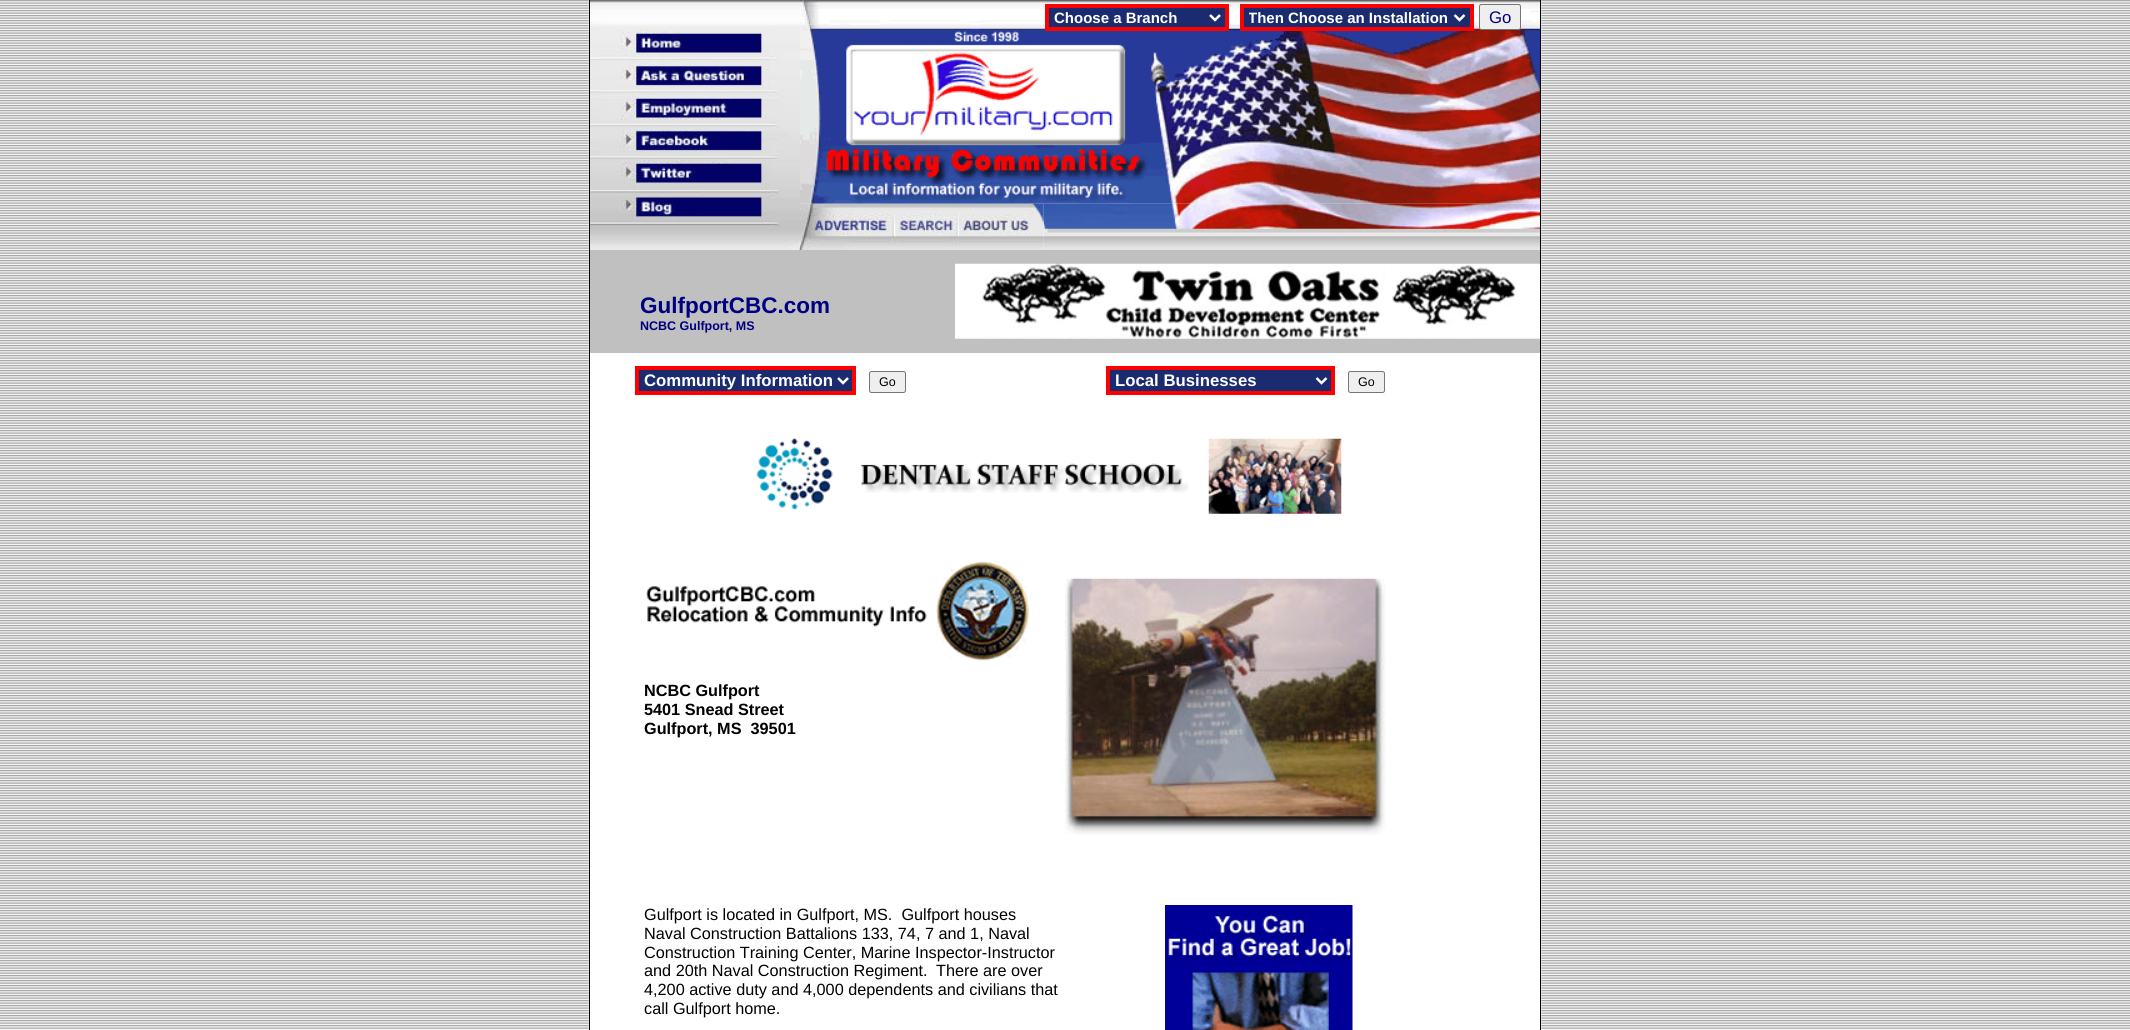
#include <cairo.h>
#include <math.h>
#include <stddef.h>

typedef struct { double x, y; const char *s; } line_t;

static void ink(cairo_t *ctx, unsigned color) {
    cairo_set_source_rgb(ctx, (color >> 16) / 255.0, (color >> 8 & 255) / 255.0, (color & 255) / 255.0);
}

static void round_path(cairo_t *ctx, double x, double y, double w, double h, double r) {
    cairo_new_sub_path(ctx);
    cairo_arc(ctx, x + w - r, y + h - r, r, 0, M_PI / 2);
    cairo_arc(ctx, x + r, y + h - r, r, M_PI / 2, M_PI);
    cairo_arc(ctx, x + r, y + r, r, M_PI, 1.5 * M_PI);
    cairo_arc(ctx, x + w - r, y + r, r, 1.5 * M_PI, 2 * M_PI);
    cairo_close_path(ctx);
}

static void paste(cairo_t *ctx, const char *path, double x, double y, double w, double h) {
    cairo_surface_t *image = cairo_image_surface_create_from_png(path);
    cairo_save(ctx);
    cairo_set_source_surface(ctx, image, x, y);
    cairo_rectangle(ctx, x, y, w, h);
    cairo_fill(ctx);
    cairo_restore(ctx);
    cairo_surface_destroy(image);
}

int main(void) {
    cairo_surface_t *surface = cairo_image_surface_create(CAIRO_FORMAT_RGB24, 2130, 1030);
    cairo_t *ctx = cairo_create(surface);
    cairo_font_options_t *options = cairo_font_options_create();
    cairo_font_options_set_hint_metrics(options, CAIRO_HINT_METRICS_OFF);
    cairo_font_options_set_hint_style(options, CAIRO_HINT_STYLE_NONE);
    cairo_set_font_options(ctx, options);
    cairo_set_miter_limit(ctx, 4);
    ink(ctx, 0xFFFFFF);
    cairo_paint(ctx);
    paste(ctx, "media/1.png", 0, 0, 589, 1030);
    ink(ctx, 0x000000);
    cairo_rectangle(ctx, 589, 0, 1, 1030);
    cairo_fill(ctx);
    paste(ctx, "media/2.png", 590, 0, 210, 250);
    paste(ctx, "media/3.png", 800, 0, 740, 204);
    ink(ctx, 0x1A2B6F);
    cairo_rectangle(ctx, 1047, 6, 180, 23);
    cairo_fill_preserve(ctx);
    ink(ctx, 0xFF0000);
    cairo_set_line_width(ctx, 4);
    cairo_stroke(ctx);
    cairo_new_path(ctx);
    cairo_move_to(ctx, 1210, 15);
    cairo_line_to(ctx, 1215, 20);
    cairo_line_to(ctx, 1220, 15);
    ink(ctx, 0xFFFFFF);
    cairo_set_line_width(ctx, 2.5);
    cairo_stroke(ctx);
    cairo_select_font_face(ctx, "Liberation Sans", CAIRO_FONT_SLANT_NORMAL, CAIRO_FONT_WEIGHT_BOLD);
    cairo_set_font_size(ctx, 15);
    cairo_move_to(ctx, 1054, 23);
    cairo_show_text(ctx, "Choose a Branch");
    ink(ctx, 0x1A2B6F);
    cairo_rectangle(ctx, 1242, 6, 230, 23);
    cairo_fill_preserve(ctx);
    ink(ctx, 0xFF0000);
    cairo_set_line_width(ctx, 4);
    cairo_stroke(ctx);
    cairo_new_path(ctx);
    cairo_move_to(ctx, 1454.5, 15);
    cairo_line_to(ctx, 1459.5, 20);
    cairo_line_to(ctx, 1464.5, 15);
    ink(ctx, 0xFFFFFF);
    cairo_set_line_width(ctx, 2.5);
    cairo_stroke(ctx);
    cairo_save(ctx);
    cairo_rectangle(ctx, 1249, 8, 201, 20);
    cairo_clip(ctx);
    cairo_move_to(ctx, 1248, 23);
    cairo_show_text(ctx, "Then Choose an Installation");
    cairo_restore(ctx);
    ink(ctx, 0xEFEFEF);
    round_path(ctx, 1479.5, 4.5, 41, 25, 2);
    cairo_fill_preserve(ctx);
    ink(ctx, 0x767676);
    cairo_set_line_width(ctx, 1);
    cairo_stroke(ctx);
    cairo_select_font_face(ctx, "Liberation Sans", CAIRO_FONT_SLANT_NORMAL, CAIRO_FONT_WEIGHT_NORMAL);
    cairo_set_font_size(ctx, 16.75);
    ink(ctx, 0x000080);
    cairo_move_to(ctx, 1489, 23);
    cairo_show_text(ctx, "Go");
    paste(ctx, "media/5.png", 1043, 203, 497, 47);
    paste(ctx, "media/4.png", 800, 203, 244, 47);
    ink(ctx, 0x000000);
    cairo_rectangle(ctx, 1540, 0, 1, 1030);
    cairo_fill(ctx);
    paste(ctx, "media/6.png", 1541, 0, 589, 1030);
    ink(ctx, 0xC0C0C0);
    cairo_rectangle(ctx, 590, 250, 950, 103);
    cairo_fill(ctx);
    cairo_select_font_face(ctx, "Liberation Sans", CAIRO_FONT_SLANT_NORMAL, CAIRO_FONT_WEIGHT_BOLD);
    cairo_set_font_size(ctx, 22.5);
    ink(ctx, 0x000080);
    cairo_move_to(ctx, 640, 313);
    cairo_show_text(ctx, "GulfportCBC.com");
    cairo_set_font_size(ctx, 12.5);
    cairo_move_to(ctx, 640, 330);
    cairo_show_text(ctx, "NCBC Gulfport, MS");
    paste(ctx, "media/7.png", 955, 263, 585, 76);
    ink(ctx, 0x1A2B6F);
    cairo_rectangle(ctx, 637, 368, 217, 25);
    cairo_fill_preserve(ctx);
    ink(ctx, 0xFF0000);
    cairo_set_line_width(ctx, 4);
    cairo_stroke(ctx);
    cairo_new_path(ctx);
    cairo_move_to(ctx, 838, 378);
    cairo_line_to(ctx, 843, 383);
    cairo_line_to(ctx, 848, 378);
    ink(ctx, 0xFFFFFF);
    cairo_set_line_width(ctx, 2.5);
    cairo_stroke(ctx);
    cairo_set_font_size(ctx, 16.75);
    cairo_move_to(ctx, 644, 386);
    cairo_show_text(ctx, "Community Information");
    ink(ctx, 0xEFEFEF);
    round_path(ctx, 869.5, 371.5, 36, 21, 2);
    cairo_fill_preserve(ctx);
    ink(ctx, 0x767676);
    cairo_set_line_width(ctx, 1);
    cairo_stroke(ctx);
    cairo_select_font_face(ctx, "Liberation Sans", CAIRO_FONT_SLANT_NORMAL, CAIRO_FONT_WEIGHT_NORMAL);
    cairo_set_font_size(ctx, 12.5);
    ink(ctx, 0x000000);
    cairo_move_to(ctx, 879, 386);
    cairo_show_text(ctx, "Go");
    ink(ctx, 0x1A2B6F);
    cairo_rectangle(ctx, 1108, 368, 225, 25);
    cairo_fill_preserve(ctx);
    ink(ctx, 0xFF0000);
    cairo_set_line_width(ctx, 4);
    cairo_stroke(ctx);
    cairo_new_path(ctx);
    cairo_move_to(ctx, 1316.5, 378);
    cairo_line_to(ctx, 1321.5, 383);
    cairo_line_to(ctx, 1326.5, 378);
    ink(ctx, 0xFFFFFF);
    cairo_set_line_width(ctx, 2.5);
    cairo_stroke(ctx);
    cairo_select_font_face(ctx, "Liberation Sans", CAIRO_FONT_SLANT_NORMAL, CAIRO_FONT_WEIGHT_BOLD);
    cairo_set_font_size(ctx, 16.75);
    cairo_move_to(ctx, 1115, 386);
    cairo_show_text(ctx, "Local Businesses");
    ink(ctx, 0xEFEFEF);
    round_path(ctx, 1348.5, 371.5, 36, 21, 2);
    cairo_fill_preserve(ctx);
    ink(ctx, 0x767676);
    cairo_set_line_width(ctx, 1);
    cairo_stroke(ctx);
    cairo_select_font_face(ctx, "Liberation Sans", CAIRO_FONT_SLANT_NORMAL, CAIRO_FONT_WEIGHT_NORMAL);
    cairo_set_font_size(ctx, 12.5);
    ink(ctx, 0x000000);
    cairo_move_to(ctx, 1358, 386);
    cairo_show_text(ctx, "Go");
    paste(ctx, "media/8.png", 756, 438, 586, 76);
    paste(ctx, "media/9.png", 646, 561, 384, 100);
    cairo_select_font_face(ctx, "Liberation Sans", CAIRO_FONT_SLANT_NORMAL, CAIRO_FONT_WEIGHT_BOLD);
    cairo_set_font_size(ctx, 16.25);
    {
        static const line_t items[] = {
            {644, 696, "NCBC Gulfport"},
            {644, 715, "5401 Snead Street"},
            {644, 734, "Gulfport, MS  39501"},
        };
        for (size_t i = 0; i < sizeof items / sizeof *items; i++) {
            cairo_move_to(ctx, items[i].x, items[i].y);
            cairo_show_text(ctx, items[i].s);
        }
    }
    paste(ctx, "media/10.png", 1065, 578, 321, 257);
    cairo_select_font_face(ctx, "Liberation Sans", CAIRO_FONT_SLANT_NORMAL, CAIRO_FONT_WEIGHT_NORMAL);
    {
        static const line_t items[] = {
            {644, 920, "Gulfport is located in Gulfport, MS.  Gulfport houses"},
            {644, 939, "Naval Construction Battalions 133, 74, 7 and 1, Naval"},
            {644, 958, "Construction Training Center, Marine Inspector-Instructor"},
            {644, 976, "and 20th Naval Construction Regiment."},
            {936, 976, "There are over"},
            {644, 995, "4,200 active duty and 4,000 dependents and civilians that"},
            {644, 1014, "call Gulfport home."},
        };
        for (size_t i = 0; i < sizeof items / sizeof *items; i++) {
            cairo_move_to(ctx, items[i].x, items[i].y);
            cairo_show_text(ctx, items[i].s);
        }
    }
    paste(ctx, "media/11.png", 1165, 905, 188, 125);
    cairo_surface_write_to_png(surface, "image.png");
    cairo_font_options_destroy(options);
    cairo_destroy(ctx);
    cairo_surface_destroy(surface);
    return 0;
}
